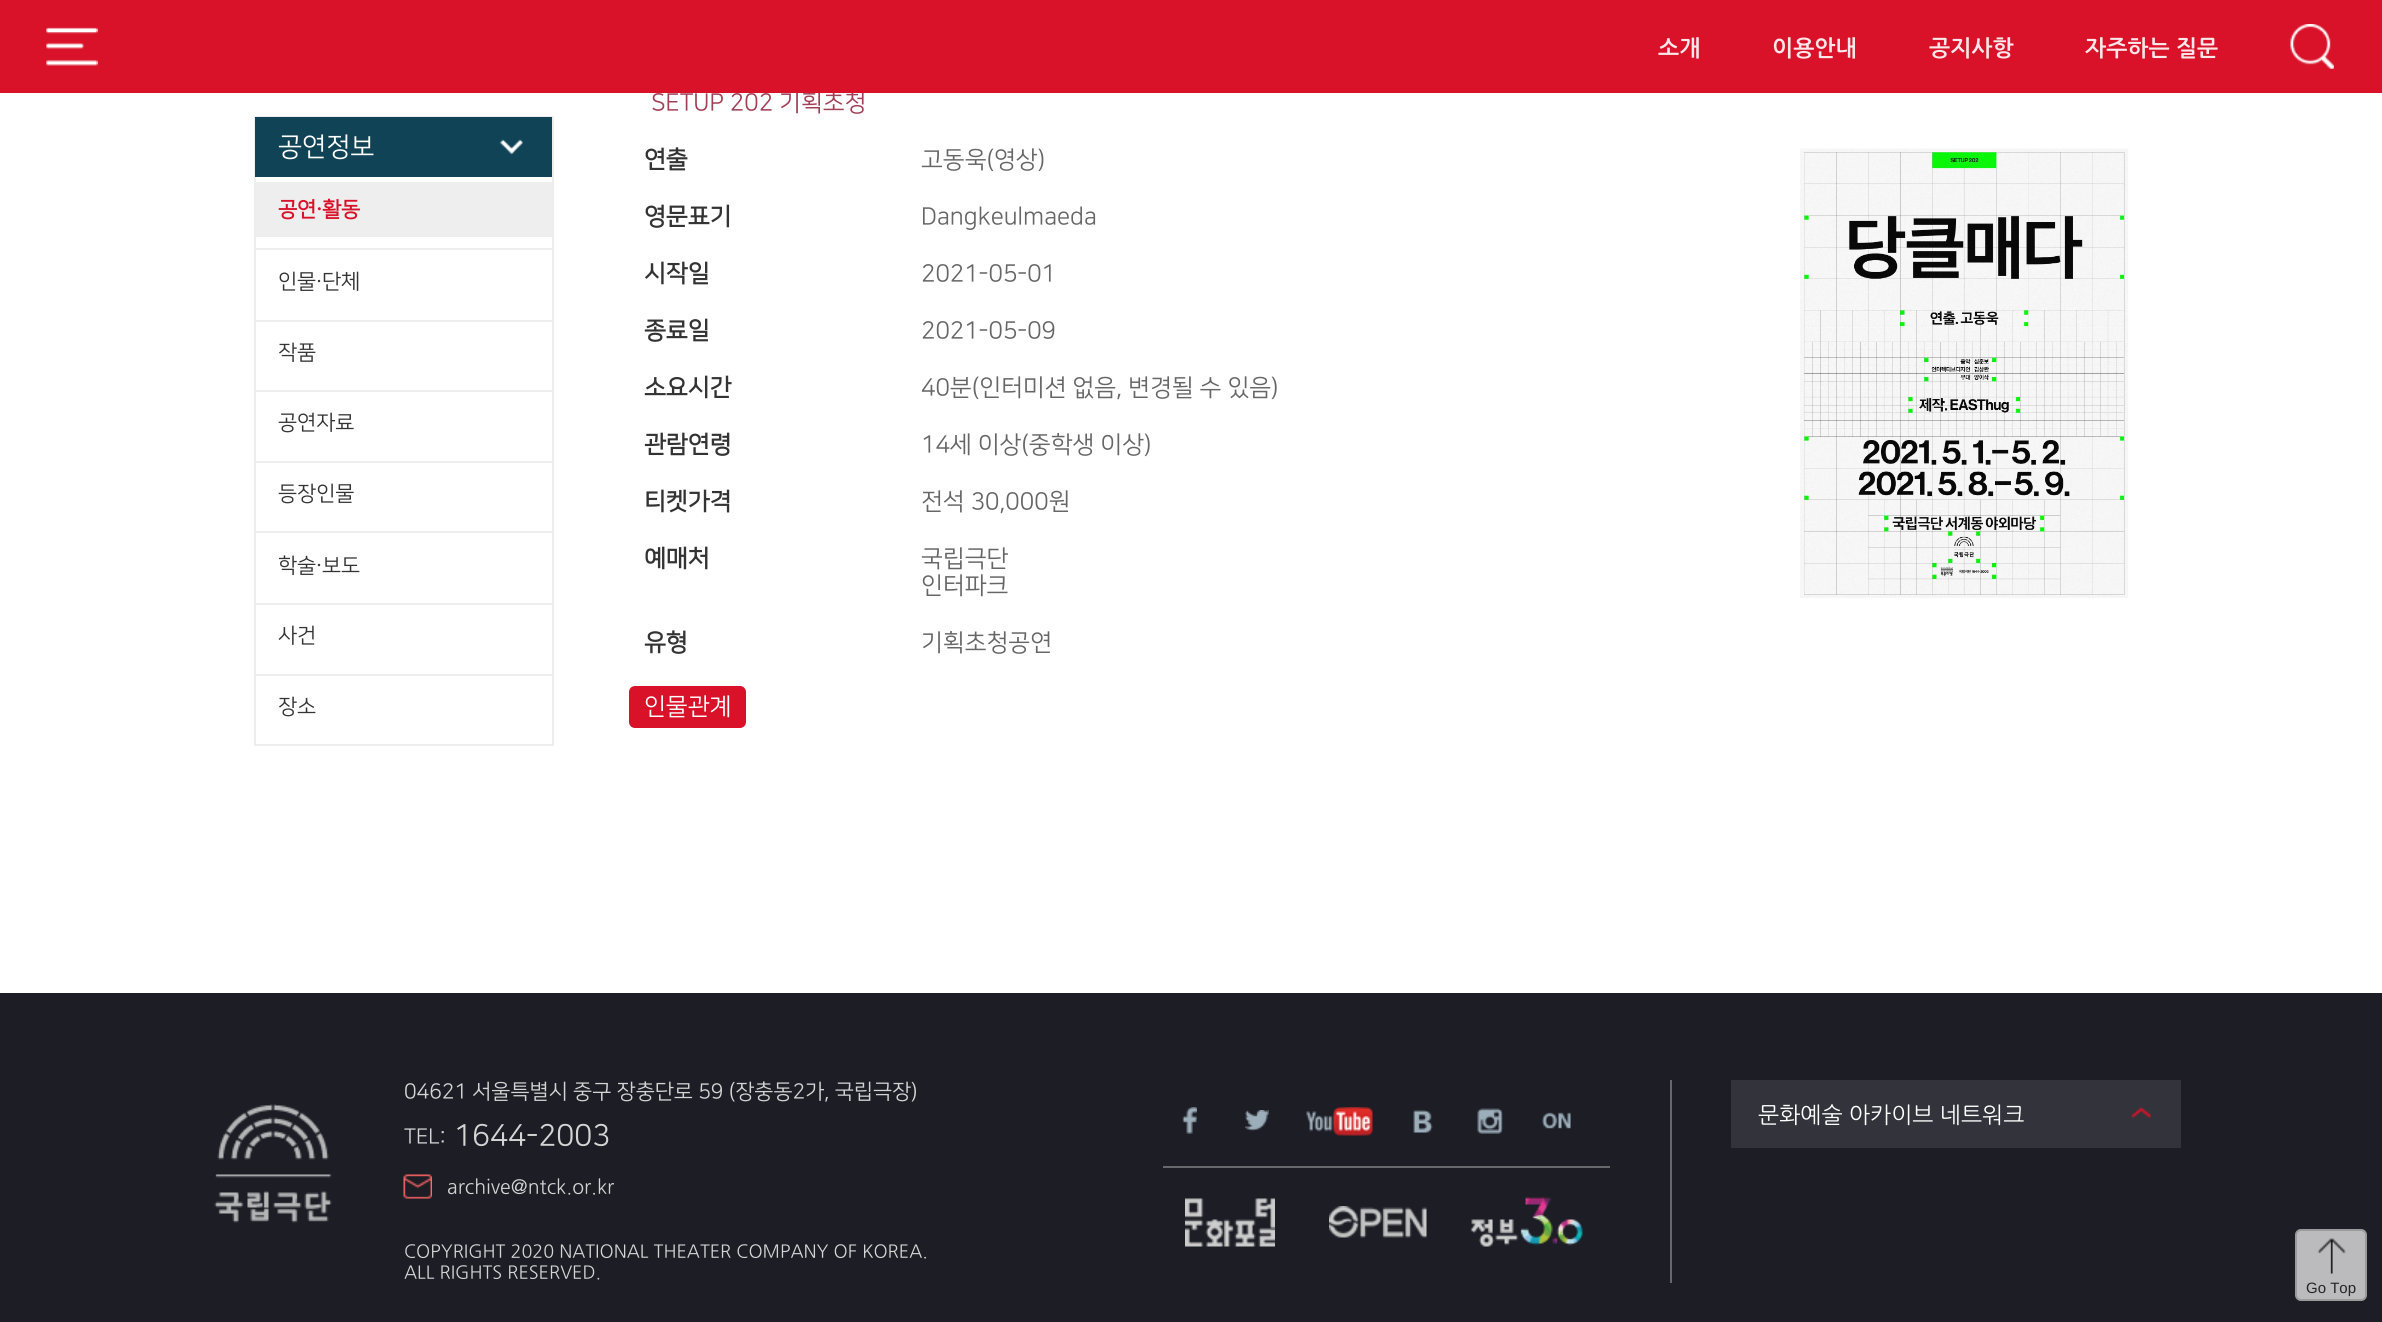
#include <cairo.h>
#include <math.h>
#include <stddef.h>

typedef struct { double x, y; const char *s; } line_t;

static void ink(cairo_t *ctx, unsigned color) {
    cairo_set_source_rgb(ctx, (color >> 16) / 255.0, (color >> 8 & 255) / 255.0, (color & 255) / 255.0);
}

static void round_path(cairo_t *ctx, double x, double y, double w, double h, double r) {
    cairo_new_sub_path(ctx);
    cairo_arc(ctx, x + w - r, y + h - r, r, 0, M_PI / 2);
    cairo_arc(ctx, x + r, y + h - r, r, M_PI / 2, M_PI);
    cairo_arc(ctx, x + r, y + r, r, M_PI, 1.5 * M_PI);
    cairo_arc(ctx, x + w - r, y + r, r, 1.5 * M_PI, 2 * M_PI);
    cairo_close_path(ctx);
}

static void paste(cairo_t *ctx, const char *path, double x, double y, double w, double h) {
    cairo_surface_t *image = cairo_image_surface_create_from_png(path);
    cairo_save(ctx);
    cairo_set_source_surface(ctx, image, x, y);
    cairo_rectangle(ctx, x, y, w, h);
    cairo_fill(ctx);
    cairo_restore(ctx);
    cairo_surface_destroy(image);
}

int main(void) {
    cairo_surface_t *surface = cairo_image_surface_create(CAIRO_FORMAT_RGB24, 2382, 1322);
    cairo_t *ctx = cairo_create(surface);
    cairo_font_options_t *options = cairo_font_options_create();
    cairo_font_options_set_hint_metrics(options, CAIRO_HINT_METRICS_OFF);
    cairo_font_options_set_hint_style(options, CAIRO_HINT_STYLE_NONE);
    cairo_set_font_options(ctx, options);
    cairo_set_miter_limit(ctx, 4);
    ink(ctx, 0xFFFFFF);
    cairo_paint(ctx);
    cairo_select_font_face(ctx, "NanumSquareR", CAIRO_FONT_SLANT_NORMAL, CAIRO_FONT_WEIGHT_NORMAL);
    cairo_set_font_size(ctx, 24);
    ink(ctx, 0xA03F55);
    cairo_move_to(ctx, 651, 110);
    cairo_show_text(ctx, "SETUP 202 기획초청");
    ink(ctx, 0xD91229);
    cairo_rectangle(ctx, 0, 0, 2382, 93);
    cairo_fill(ctx);
    paste(ctx, "media/1.png", 46, 27, 52, 39);
    cairo_select_font_face(ctx, "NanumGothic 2", CAIRO_FONT_SLANT_NORMAL, CAIRO_FONT_WEIGHT_BOLD);
    cairo_set_font_size(ctx, 22.5);
    ink(ctx, 0xFBE7EA);
    {
        static const line_t items[] = {
            {1658, 55, "소개"},
            {1772, 55, "이용안내"},
            {1929, 55, "공지사항"},
            {2085, 55, "자주하는 질문"},
        };
        for (size_t i = 0; i < sizeof items / sizeof *items; i++) {
            cairo_move_to(ctx, items[i].x, items[i].y);
            cairo_show_text(ctx, items[i].s);
        }
    }
    paste(ctx, "media/2.png", 2290, 24, 44, 45);
    cairo_rectangle(ctx, 255, 117, 298, 628);
    ink(ctx, 0xEEEEEE);
    cairo_stroke(ctx);
    ink(ctx, 0x114356);
    cairo_rectangle(ctx, 255, 117, 297, 60);
    cairo_fill(ctx);
    cairo_select_font_face(ctx, "NanumSquareR", CAIRO_FONT_SLANT_NORMAL, CAIRO_FONT_WEIGHT_NORMAL);
    cairo_set_font_size(ctx, 26.5);
    ink(ctx, 0xFFFFFF);
    cairo_move_to(ctx, 278, 155);
    cairo_show_text(ctx, "공연정보");
    paste(ctx, "media/3.png", 499, 139, 24, 16);
    ink(ctx, 0xEEEEEE);
    cairo_rectangle(ctx, 255, 248, 297, 2);
    cairo_fill(ctx);
    cairo_rectangle(ctx, 256, 182, 296, 55);
    cairo_fill(ctx);
    cairo_select_font_face(ctx, "NanumSquareR", CAIRO_FONT_SLANT_NORMAL, CAIRO_FONT_WEIGHT_BOLD);
    cairo_set_font_size(ctx, 21);
    ink(ctx, 0xD91229);
    cairo_move_to(ctx, 278, 216);
    cairo_show_text(ctx, "공연");
    cairo_select_font_face(ctx, "NanumGothic", CAIRO_FONT_SLANT_NORMAL, CAIRO_FONT_WEIGHT_BOLD);
    cairo_move_to(ctx, 316, 216);
    cairo_show_text(ctx, "·");
    cairo_select_font_face(ctx, "NanumSquareR", CAIRO_FONT_SLANT_NORMAL, CAIRO_FONT_WEIGHT_BOLD);
    cairo_move_to(ctx, 322, 216);
    cairo_show_text(ctx, "활동");
    ink(ctx, 0xEEEEEE);
    cairo_rectangle(ctx, 255, 320, 297, 2);
    cairo_fill(ctx);
    cairo_select_font_face(ctx, "NanumSquareR", CAIRO_FONT_SLANT_NORMAL, CAIRO_FONT_WEIGHT_NORMAL);
    ink(ctx, 0x333333);
    cairo_move_to(ctx, 278, 288);
    cairo_show_text(ctx, "인물");
    cairo_select_font_face(ctx, "NanumGothic", CAIRO_FONT_SLANT_NORMAL, CAIRO_FONT_WEIGHT_NORMAL);
    cairo_move_to(ctx, 316, 288);
    cairo_show_text(ctx, "·");
    cairo_select_font_face(ctx, "NanumSquareR", CAIRO_FONT_SLANT_NORMAL, CAIRO_FONT_WEIGHT_NORMAL);
    cairo_move_to(ctx, 322, 288);
    cairo_show_text(ctx, "단체");
    ink(ctx, 0xEEEEEE);
    cairo_rectangle(ctx, 255, 390, 297, 2);
    cairo_fill(ctx);
    ink(ctx, 0x333333);
    cairo_move_to(ctx, 278, 359);
    cairo_show_text(ctx, "작품");
    ink(ctx, 0xEEEEEE);
    cairo_rectangle(ctx, 255, 461, 297, 2);
    cairo_fill(ctx);
    ink(ctx, 0x333333);
    cairo_move_to(ctx, 278, 429);
    cairo_show_text(ctx, "공연자료");
    ink(ctx, 0xEEEEEE);
    cairo_rectangle(ctx, 255, 531, 297, 2);
    cairo_fill(ctx);
    ink(ctx, 0x333333);
    cairo_move_to(ctx, 278, 500);
    cairo_show_text(ctx, "등장인물");
    ink(ctx, 0xEEEEEE);
    cairo_rectangle(ctx, 255, 603, 297, 2);
    cairo_fill(ctx);
    ink(ctx, 0x333333);
    cairo_move_to(ctx, 278, 572);
    cairo_show_text(ctx, "학술");
    cairo_select_font_face(ctx, "NanumGothic", CAIRO_FONT_SLANT_NORMAL, CAIRO_FONT_WEIGHT_NORMAL);
    cairo_move_to(ctx, 316, 572);
    cairo_show_text(ctx, "·");
    cairo_select_font_face(ctx, "NanumSquareR", CAIRO_FONT_SLANT_NORMAL, CAIRO_FONT_WEIGHT_NORMAL);
    cairo_move_to(ctx, 322, 572);
    cairo_show_text(ctx, "보도");
    ink(ctx, 0xEEEEEE);
    cairo_rectangle(ctx, 255, 674, 297, 2);
    cairo_fill(ctx);
    ink(ctx, 0x333333);
    cairo_move_to(ctx, 278, 642);
    cairo_show_text(ctx, "사건");
    cairo_move_to(ctx, 278, 713);
    cairo_show_text(ctx, "장소");
    cairo_select_font_face(ctx, "NanumSquareR", CAIRO_FONT_SLANT_NORMAL, CAIRO_FONT_WEIGHT_BOLD);
    cairo_set_font_size(ctx, 24);
    cairo_move_to(ctx, 644, 167);
    cairo_show_text(ctx, "연출");
    cairo_select_font_face(ctx, "NanumSquareR", CAIRO_FONT_SLANT_NORMAL, CAIRO_FONT_WEIGHT_NORMAL);
    ink(ctx, 0x666666);
    cairo_move_to(ctx, 921, 167);
    cairo_show_text(ctx, "고동욱(영상)");
    cairo_select_font_face(ctx, "NanumSquareR", CAIRO_FONT_SLANT_NORMAL, CAIRO_FONT_WEIGHT_BOLD);
    ink(ctx, 0x333333);
    cairo_move_to(ctx, 644, 224);
    cairo_show_text(ctx, "영문표기");
    cairo_select_font_face(ctx, "NanumSquareR", CAIRO_FONT_SLANT_NORMAL, CAIRO_FONT_WEIGHT_NORMAL);
    ink(ctx, 0x666666);
    cairo_move_to(ctx, 921, 224);
    cairo_show_text(ctx, "Dangkeulmaeda");
    cairo_select_font_face(ctx, "NanumSquareR", CAIRO_FONT_SLANT_NORMAL, CAIRO_FONT_WEIGHT_BOLD);
    ink(ctx, 0x333333);
    cairo_move_to(ctx, 644, 281);
    cairo_show_text(ctx, "시작일");
    cairo_select_font_face(ctx, "NanumSquareR", CAIRO_FONT_SLANT_NORMAL, CAIRO_FONT_WEIGHT_NORMAL);
    ink(ctx, 0x666666);
    cairo_move_to(ctx, 921, 281);
    cairo_show_text(ctx, "2021-05-01");
    cairo_select_font_face(ctx, "NanumSquareR", CAIRO_FONT_SLANT_NORMAL, CAIRO_FONT_WEIGHT_BOLD);
    ink(ctx, 0x333333);
    cairo_move_to(ctx, 644, 338);
    cairo_show_text(ctx, "종료일");
    cairo_select_font_face(ctx, "NanumSquareR", CAIRO_FONT_SLANT_NORMAL, CAIRO_FONT_WEIGHT_NORMAL);
    ink(ctx, 0x666666);
    cairo_move_to(ctx, 921, 338);
    cairo_show_text(ctx, "2021-05-09");
    cairo_select_font_face(ctx, "NanumSquareR", CAIRO_FONT_SLANT_NORMAL, CAIRO_FONT_WEIGHT_BOLD);
    ink(ctx, 0x333333);
    cairo_move_to(ctx, 644, 395);
    cairo_show_text(ctx, "소요시간");
    cairo_select_font_face(ctx, "NanumSquareR", CAIRO_FONT_SLANT_NORMAL, CAIRO_FONT_WEIGHT_NORMAL);
    ink(ctx, 0x666666);
    cairo_move_to(ctx, 921, 395);
    cairo_show_text(ctx, "40분(인터미션 없음, 변경될 수 있음)");
    cairo_select_font_face(ctx, "NanumSquareR", CAIRO_FONT_SLANT_NORMAL, CAIRO_FONT_WEIGHT_BOLD);
    ink(ctx, 0x333333);
    cairo_move_to(ctx, 644, 452);
    cairo_show_text(ctx, "관람연령");
    cairo_select_font_face(ctx, "NanumSquareR", CAIRO_FONT_SLANT_NORMAL, CAIRO_FONT_WEIGHT_NORMAL);
    ink(ctx, 0x666666);
    cairo_move_to(ctx, 921, 452);
    cairo_show_text(ctx, "14세 이상(중학생 이상)");
    cairo_select_font_face(ctx, "NanumSquareR", CAIRO_FONT_SLANT_NORMAL, CAIRO_FONT_WEIGHT_BOLD);
    ink(ctx, 0x333333);
    cairo_move_to(ctx, 644, 509);
    cairo_show_text(ctx, "티켓가격");
    cairo_select_font_face(ctx, "NanumSquareR", CAIRO_FONT_SLANT_NORMAL, CAIRO_FONT_WEIGHT_NORMAL);
    ink(ctx, 0x666666);
    cairo_move_to(ctx, 921, 509);
    cairo_show_text(ctx, "전석 30,000원");
    cairo_select_font_face(ctx, "NanumSquareR", CAIRO_FONT_SLANT_NORMAL, CAIRO_FONT_WEIGHT_BOLD);
    ink(ctx, 0x333333);
    cairo_move_to(ctx, 644, 566);
    cairo_show_text(ctx, "예매처");
    cairo_select_font_face(ctx, "NanumSquareR", CAIRO_FONT_SLANT_NORMAL, CAIRO_FONT_WEIGHT_NORMAL);
    ink(ctx, 0x666666);
    cairo_move_to(ctx, 921, 566);
    cairo_show_text(ctx, "국립극단");
    cairo_move_to(ctx, 921, 593);
    cairo_show_text(ctx, "인터파크");
    cairo_select_font_face(ctx, "NanumSquareR", CAIRO_FONT_SLANT_NORMAL, CAIRO_FONT_WEIGHT_BOLD);
    ink(ctx, 0x333333);
    cairo_move_to(ctx, 644, 650);
    cairo_show_text(ctx, "유형");
    cairo_select_font_face(ctx, "NanumSquareR", CAIRO_FONT_SLANT_NORMAL, CAIRO_FONT_WEIGHT_NORMAL);
    ink(ctx, 0x666666);
    cairo_move_to(ctx, 921, 650);
    cairo_show_text(ctx, "기획초청공연");
    ink(ctx, 0xD91229);
    round_path(ctx, 629, 686, 117, 42, 6);
    cairo_fill(ctx);
    ink(ctx, 0xFFFFFF);
    cairo_move_to(ctx, 644, 714);
    cairo_show_text(ctx, "인물관계");
    paste(ctx, "media/4.png", 1800, 148, 329, 450);
    ink(ctx, 0x1C1D25);
    cairo_rectangle(ctx, 0, 993, 2382, 329);
    cairo_fill(ctx);
    paste(ctx, "media/5.png", 214, 1104, 118, 119);
    cairo_set_font_size(ctx, 21);
    ink(ctx, 0xD3D4D4);
    cairo_move_to(ctx, 404, 1098);
    cairo_show_text(ctx, "04621 서울특별시 중구 장충단로 59 (장충동2가, 국립극장)");
    cairo_move_to(ctx, 404, 1143);
    cairo_show_text(ctx, "TEL:");
    cairo_set_font_size(ctx, 30);
    cairo_move_to(ctx, 454, 1145);
    cairo_show_text(ctx, "1644-2003");
    paste(ctx, "media/6.png", 403, 1174, 29, 25);
    cairo_select_font_face(ctx, "NanumGothic", CAIRO_FONT_SLANT_NORMAL, CAIRO_FONT_WEIGHT_NORMAL);
    cairo_set_font_size(ctx, 19.5);
    cairo_move_to(ctx, 447, 1193);
    cairo_show_text(ctx, "archive@ntck.or.kr");
    cairo_set_font_size(ctx, 18);
    cairo_move_to(ctx, 404, 1257);
    cairo_show_text(ctx, "COPYRIGHT 2020 NATIONAL THEATER COMPANY OF KOREA.");
    cairo_move_to(ctx, 404, 1278);
    cairo_show_text(ctx, "ALL RIGHTS RESERVED.");
    ink(ctx, 0x67686D);
    cairo_rectangle(ctx, 1670, 1080, 2, 203);
    cairo_fill(ctx);
    cairo_rectangle(ctx, 1163, 1166, 447, 2);
    cairo_fill(ctx);
    paste(ctx, "media/7.png", 1182, 1107, 15, 27);
    paste(ctx, "media/8.png", 1245, 1110, 24, 21);
    paste(ctx, "media/9.png", 1306, 1107, 67, 29);
    paste(ctx, "media/10.png", 1413, 1110, 20, 23);
    paste(ctx, "media/11.png", 1477, 1108, 26, 26);
    paste(ctx, "media/12.png", 1542, 1112, 29, 17);
    paste(ctx, "media/13.png", 1185, 1198, 90, 49);
    paste(ctx, "media/14.png", 1329, 1206, 98, 32);
    paste(ctx, "media/15.png", 1470, 1197, 113, 50);
    ink(ctx, 0x33343B);
    cairo_rectangle(ctx, 1731, 1080, 450, 68);
    cairo_fill(ctx);
    paste(ctx, "media/16.png", 2131, 1107, 20, 11);
    cairo_set_font_size(ctx, 22.5);
    ink(ctx, 0xFFFFFF);
    cairo_move_to(ctx, 1758, 1122);
    cairo_show_text(ctx, "문화예술 아카이브 네트워크");
    ink(ctx, 0xBBBBBE);
    round_path(ctx, 2295, 1229, 72, 72, 6);
    cairo_fill(ctx);
    paste(ctx, "media/17.png", 2317, 1238, 29, 36);
    round_path(ctx, 2296, 1230, 70, 70, 5);
    cairo_set_source_rgba(ctx, 0, 0, 0, 0.17);
    cairo_stroke(ctx);
    cairo_select_font_face(ctx, "Liberation Sans", CAIRO_FONT_SLANT_NORMAL, CAIRO_FONT_WEIGHT_NORMAL);
    cairo_set_font_size(ctx, 15);
    ink(ctx, 0x252526);
    cairo_move_to(ctx, 2306, 1293);
    cairo_show_text(ctx, "Go Top");
    cairo_surface_write_to_png(surface, "image.png");
    cairo_font_options_destroy(options);
    cairo_destroy(ctx);
    cairo_surface_destroy(surface);
    return 0;
}
